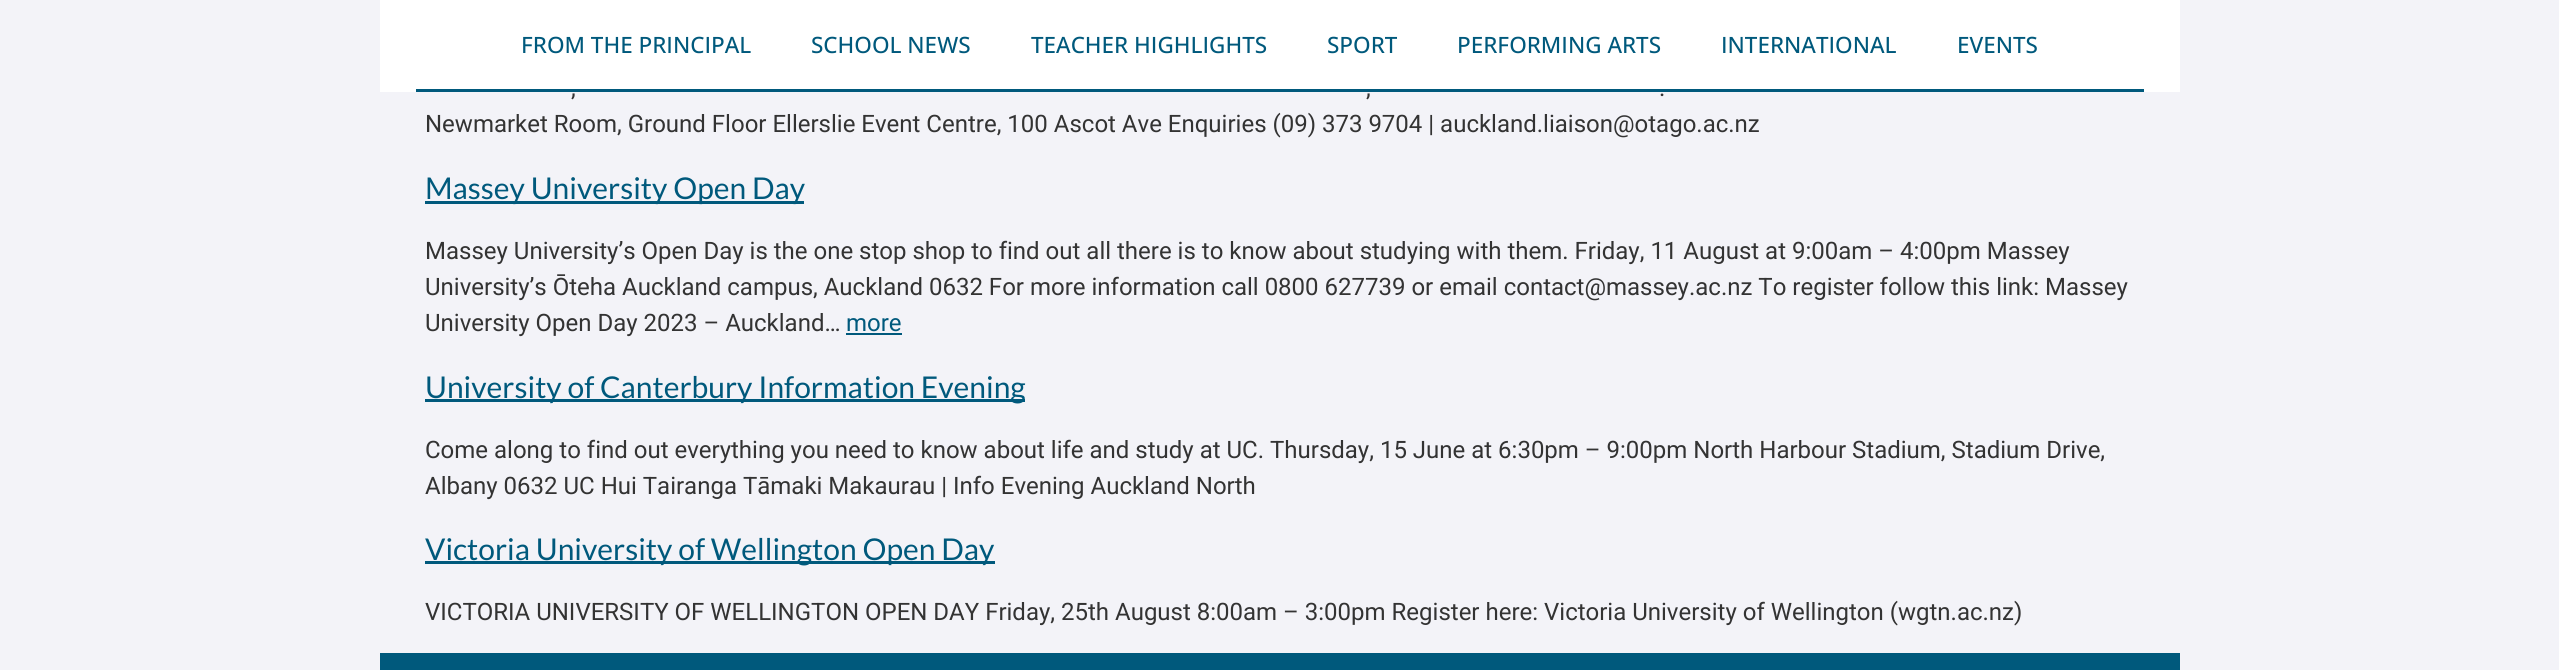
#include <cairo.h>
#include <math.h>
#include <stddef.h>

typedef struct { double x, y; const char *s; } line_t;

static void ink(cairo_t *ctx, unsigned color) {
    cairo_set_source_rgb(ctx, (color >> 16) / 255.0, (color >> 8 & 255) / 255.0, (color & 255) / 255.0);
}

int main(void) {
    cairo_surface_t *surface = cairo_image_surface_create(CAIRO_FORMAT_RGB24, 2559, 670);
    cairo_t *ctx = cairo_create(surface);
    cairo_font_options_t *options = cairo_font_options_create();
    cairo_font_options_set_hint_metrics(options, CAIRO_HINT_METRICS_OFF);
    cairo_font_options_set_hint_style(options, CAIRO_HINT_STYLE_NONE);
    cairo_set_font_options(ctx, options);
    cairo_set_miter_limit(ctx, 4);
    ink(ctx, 0xF3F3F8);
    cairo_paint(ctx);
    ink(ctx, 0xFFFFFF);
    cairo_rectangle(ctx, 380, 0, 1800, 92);
    cairo_fill(ctx);
    ink(ctx, 0x00597C);
    cairo_rectangle(ctx, 416, 89, 1728, 3);
    cairo_fill(ctx);
    cairo_select_font_face(ctx, "Open Sans Medium", CAIRO_FONT_SLANT_NORMAL, CAIRO_FONT_WEIGHT_NORMAL);
    cairo_set_font_size(ctx, 22.5);
    {
        static const line_t items[] = {
            {521, 53, "FROM THE PRINCIPAL"},
            {811, 53, "SCHOOL NEWS"},
            {1031, 53, "TEACHER HIGHLIGHTS"},
            {1327, 53, "SPORT"},
            {1457, 53, "PERFORMING ARTS"},
            {1721, 53, "INTERNATIONAL"},
            {1957, 53, "EVENTS"},
        };
        for (size_t i = 0; i < sizeof items / sizeof *items; i++) {
            cairo_move_to(ctx, items[i].x, items[i].y);
            cairo_show_text(ctx, items[i].s);
        }
    }
    cairo_select_font_face(ctx, "Roboto", CAIRO_FONT_SLANT_NORMAL, CAIRO_FONT_WEIGHT_NORMAL);
    cairo_set_font_size(ctx, 24);
    ink(ctx, 0x333333);
    {
        static const line_t items[] = {
            {571, 96, ","},
            {1366, 96, ","},
            {1659, 96, "."},
            {425, 132, "Newmarket Room, Ground Floor Ellerslie Event Centre, 100 Ascot Ave Enquiries (09) 373 9704 | auckland.liaison@otago.ac.nz"},
        };
        for (size_t i = 0; i < sizeof items / sizeof *items; i++) {
            cairo_move_to(ctx, items[i].x, items[i].y);
            cairo_show_text(ctx, items[i].s);
        }
    }
    ink(ctx, 0x00597C);
    cairo_rectangle(ctx, 425, 201, 379, 3);
    cairo_fill(ctx);
    cairo_select_font_face(ctx, "Lato", CAIRO_FONT_SLANT_NORMAL, CAIRO_FONT_WEIGHT_NORMAL);
    cairo_set_font_size(ctx, 30);
    cairo_move_to(ctx, 425, 199);
    cairo_show_text(ctx, "Massey University Open Day");
    cairo_select_font_face(ctx, "Roboto", CAIRO_FONT_SLANT_NORMAL, CAIRO_FONT_WEIGHT_NORMAL);
    cairo_set_font_size(ctx, 24);
    ink(ctx, 0x333333);
    {
        static const line_t items[] = {
            {425, 259, "Massey University’s Open Day is the one stop shop to find out all there is to know about studying with them. Friday, 11 August at 9:00am – 4:00pm Massey"},
            {425, 295, "University’s Ōteha Auckland campus, Auckland 0632 For more information call 0800 627739 or email contact@massey.ac.nz To register follow this link: Massey"},
            {425, 331, "University Open Day 2023 – Auckland…"},
        };
        for (size_t i = 0; i < sizeof items / sizeof *items; i++) {
            cairo_move_to(ctx, items[i].x, items[i].y);
            cairo_show_text(ctx, items[i].s);
        }
    }
    ink(ctx, 0x00597C);
    cairo_move_to(ctx, 846, 331);
    cairo_show_text(ctx, "more");
    cairo_rectangle(ctx, 846, 333, 56, 2);
    cairo_fill(ctx);
    cairo_rectangle(ctx, 425, 399, 600, 3);
    cairo_fill(ctx);
    cairo_select_font_face(ctx, "Lato", CAIRO_FONT_SLANT_NORMAL, CAIRO_FONT_WEIGHT_NORMAL);
    cairo_set_font_size(ctx, 30);
    cairo_move_to(ctx, 425, 398);
    cairo_show_text(ctx, "University of Canterbury Information Evening");
    cairo_select_font_face(ctx, "Roboto", CAIRO_FONT_SLANT_NORMAL, CAIRO_FONT_WEIGHT_NORMAL);
    cairo_set_font_size(ctx, 24);
    ink(ctx, 0x333333);
    cairo_move_to(ctx, 425, 458);
    cairo_show_text(ctx, "Come along to find out everything you need to know about life and study at UC. Thursday, 15 June at 6:30pm – 9:00pm North Harbour Stadium, Stadium Drive,");
    cairo_move_to(ctx, 425, 494);
    cairo_show_text(ctx, "Albany 0632 UC Hui Tairanga Tāmaki Makaurau | Info Evening Auckland North");
    ink(ctx, 0x00597C);
    cairo_rectangle(ctx, 425, 561, 570, 3);
    cairo_fill(ctx);
    cairo_select_font_face(ctx, "Lato", CAIRO_FONT_SLANT_NORMAL, CAIRO_FONT_WEIGHT_NORMAL);
    cairo_set_font_size(ctx, 30);
    cairo_move_to(ctx, 425, 560);
    cairo_show_text(ctx, "Victoria University of Wellington Open Day");
    cairo_select_font_face(ctx, "Roboto", CAIRO_FONT_SLANT_NORMAL, CAIRO_FONT_WEIGHT_NORMAL);
    cairo_set_font_size(ctx, 24);
    ink(ctx, 0x333333);
    cairo_move_to(ctx, 425, 620);
    cairo_show_text(ctx, "VICTORIA UNIVERSITY OF WELLINGTON OPEN DAY Friday, 25th August 8:00am – 3:00pm Register here: Victoria University of Wellington (wgtn.ac.nz)");
    ink(ctx, 0x00597C);
    cairo_rectangle(ctx, 380, 653, 1800, 17);
    cairo_fill(ctx);
    cairo_surface_write_to_png(surface, "image.png");
    cairo_font_options_destroy(options);
    cairo_destroy(ctx);
    cairo_surface_destroy(surface);
    return 0;
}
